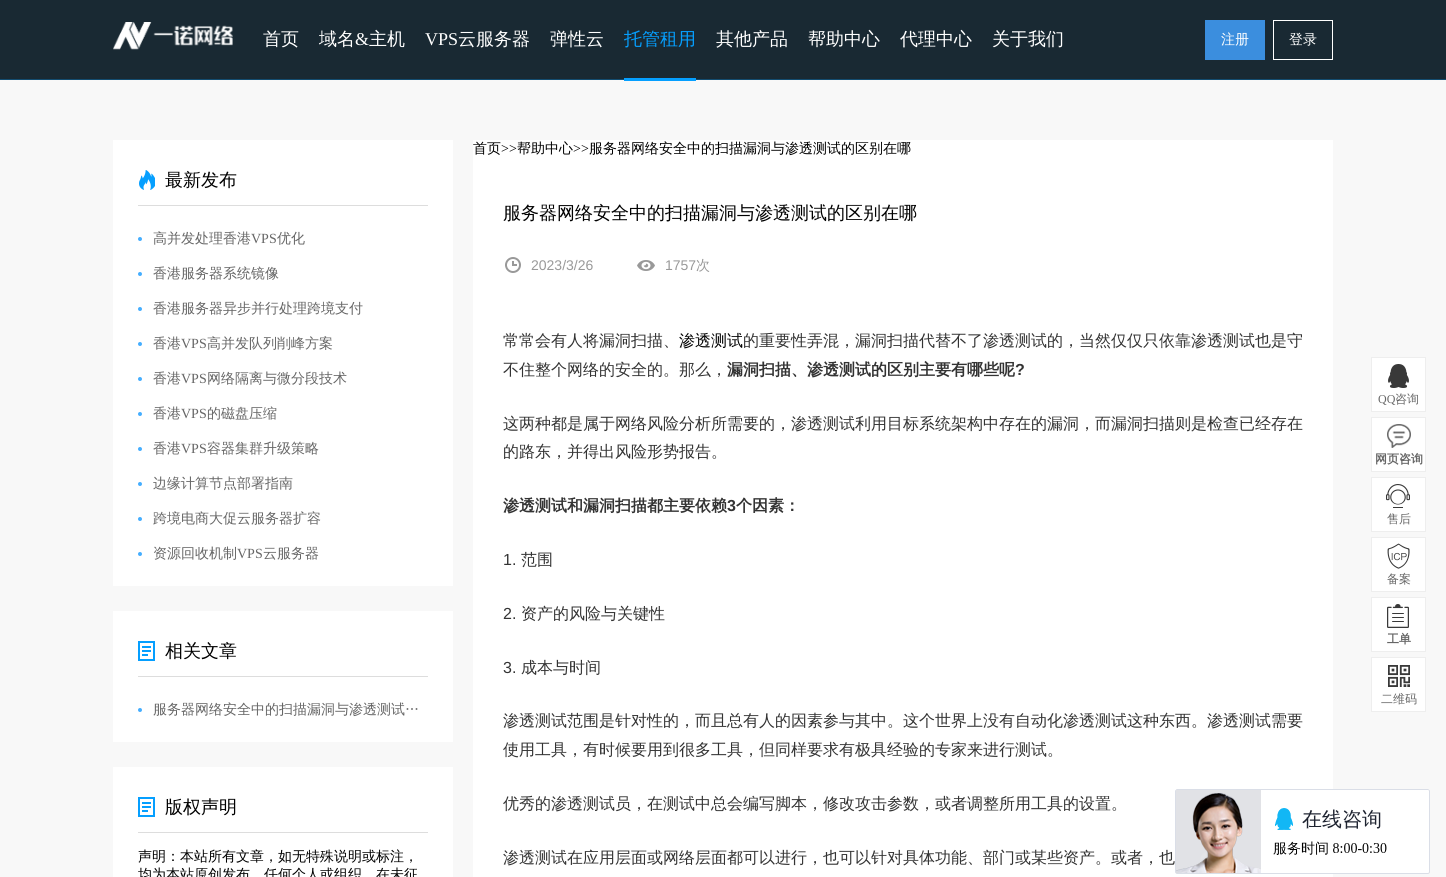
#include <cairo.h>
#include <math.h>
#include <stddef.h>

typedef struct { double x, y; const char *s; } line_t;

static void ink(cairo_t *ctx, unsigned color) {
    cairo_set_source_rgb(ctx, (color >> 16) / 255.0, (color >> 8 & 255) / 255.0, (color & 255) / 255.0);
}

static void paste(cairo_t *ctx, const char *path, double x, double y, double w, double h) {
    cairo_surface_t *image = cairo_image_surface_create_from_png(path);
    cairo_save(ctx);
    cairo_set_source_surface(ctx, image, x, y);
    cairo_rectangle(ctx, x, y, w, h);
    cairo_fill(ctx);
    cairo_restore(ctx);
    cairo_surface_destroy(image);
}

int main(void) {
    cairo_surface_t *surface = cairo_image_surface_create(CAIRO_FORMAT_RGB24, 1446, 877);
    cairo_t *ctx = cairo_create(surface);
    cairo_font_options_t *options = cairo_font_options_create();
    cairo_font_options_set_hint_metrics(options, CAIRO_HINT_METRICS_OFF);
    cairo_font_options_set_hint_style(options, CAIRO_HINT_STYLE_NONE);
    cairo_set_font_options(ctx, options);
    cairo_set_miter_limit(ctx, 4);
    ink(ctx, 0xF8F8F8);
    cairo_paint(ctx);
    ink(ctx, 0x192933);
    cairo_rectangle(ctx, 0, 0, 1446, 79);
    cairo_fill(ctx);
    ink(ctx, 0x134C70);
    cairo_rectangle(ctx, 0, 79, 1446, 1);
    cairo_fill(ctx);
    paste(ctx, "media/1.png", 113, 22, 120, 28);
    cairo_select_font_face(ctx, "WenQuanYi Zen Hei Medium", CAIRO_FONT_SLANT_NORMAL, CAIRO_FONT_WEIGHT_NORMAL);
    cairo_set_font_size(ctx, 18);
    ink(ctx, 0xFFFFFF);
    cairo_move_to(ctx, 263, 45);
    cairo_show_text(ctx, "首页");
    cairo_move_to(ctx, 319, 45);
    cairo_show_text(ctx, "域名");
    cairo_select_font_face(ctx, "Liberation Serif", CAIRO_FONT_SLANT_NORMAL, CAIRO_FONT_WEIGHT_NORMAL);
    cairo_move_to(ctx, 355, 45);
    cairo_show_text(ctx, "&");
    cairo_select_font_face(ctx, "WenQuanYi Zen Hei Medium", CAIRO_FONT_SLANT_NORMAL, CAIRO_FONT_WEIGHT_NORMAL);
    cairo_move_to(ctx, 369, 45);
    cairo_show_text(ctx, "主机");
    cairo_select_font_face(ctx, "Liberation Serif", CAIRO_FONT_SLANT_NORMAL, CAIRO_FONT_WEIGHT_NORMAL);
    cairo_move_to(ctx, 425, 45);
    cairo_show_text(ctx, "VPS");
    cairo_select_font_face(ctx, "WenQuanYi Zen Hei Medium", CAIRO_FONT_SLANT_NORMAL, CAIRO_FONT_WEIGHT_NORMAL);
    cairo_move_to(ctx, 458, 45);
    cairo_show_text(ctx, "云服务器");
    cairo_move_to(ctx, 550, 45);
    cairo_show_text(ctx, "弹性云");
    ink(ctx, 0x059FFF);
    cairo_move_to(ctx, 624, 45);
    cairo_show_text(ctx, "托管租用");
    cairo_rectangle(ctx, 624, 78, 72, 3);
    cairo_fill(ctx);
    ink(ctx, 0xFFFFFF);
    {
        static const line_t items[] = {
            {716, 45, "其他产品"},
            {808, 45, "帮助中心"},
            {900, 45, "代理中心"},
            {992, 45, "关于我们"},
        };
        for (size_t i = 0; i < sizeof items / sizeof *items; i++) {
            cairo_move_to(ctx, items[i].x, items[i].y);
            cairo_show_text(ctx, items[i].s);
        }
    }
    ink(ctx, 0x3B8EDE);
    cairo_rectangle(ctx, 1205, 20, 60, 40);
    cairo_fill(ctx);
    cairo_set_font_size(ctx, 14);
    ink(ctx, 0xFFFFFF);
    cairo_move_to(ctx, 1221, 44);
    cairo_show_text(ctx, "注册");
    cairo_rectangle(ctx, 1273.5, 20.5, 59, 39);
    cairo_set_line_width(ctx, 1);
    cairo_stroke(ctx);
    cairo_move_to(ctx, 1289, 44);
    cairo_show_text(ctx, "登录");
    cairo_rectangle(ctx, 113, 140, 340, 446);
    cairo_fill(ctx);
    ink(ctx, 0xDDDDDD);
    cairo_rectangle(ctx, 138, 205, 290, 1);
    cairo_fill(ctx);
    paste(ctx, "media/2.png", 139, 170, 16, 20);
    cairo_set_font_size(ctx, 18);
    ink(ctx, 0x000000);
    cairo_move_to(ctx, 165, 186);
    cairo_show_text(ctx, "最新发布");
    ink(ctx, 0x45AEFF);
    cairo_new_path(ctx);
    cairo_arc(ctx, 140, 239, 2, 0, 2 * M_PI);
    cairo_fill(ctx);
    cairo_set_font_size(ctx, 14);
    ink(ctx, 0x666666);
    cairo_move_to(ctx, 153, 243);
    cairo_show_text(ctx, "高并发处理香港");
    cairo_select_font_face(ctx, "Liberation Serif", CAIRO_FONT_SLANT_NORMAL, CAIRO_FONT_WEIGHT_NORMAL);
    cairo_move_to(ctx, 251, 243);
    cairo_show_text(ctx, "VPS");
    cairo_select_font_face(ctx, "WenQuanYi Zen Hei Medium", CAIRO_FONT_SLANT_NORMAL, CAIRO_FONT_WEIGHT_NORMAL);
    cairo_move_to(ctx, 277, 243);
    cairo_show_text(ctx, "优化");
    ink(ctx, 0x45AEFF);
    cairo_new_path(ctx);
    cairo_arc(ctx, 140, 274, 2, 0, 2 * M_PI);
    cairo_fill(ctx);
    ink(ctx, 0x666666);
    cairo_move_to(ctx, 153, 278);
    cairo_show_text(ctx, "香港服务器系统镜像");
    ink(ctx, 0x45AEFF);
    cairo_new_path(ctx);
    cairo_arc(ctx, 140, 309, 2, 0, 2 * M_PI);
    cairo_fill(ctx);
    ink(ctx, 0x666666);
    cairo_move_to(ctx, 153, 313);
    cairo_show_text(ctx, "香港服务器异步并行处理跨境支付");
    ink(ctx, 0x45AEFF);
    cairo_new_path(ctx);
    cairo_arc(ctx, 140, 344, 2, 0, 2 * M_PI);
    cairo_fill(ctx);
    ink(ctx, 0x666666);
    cairo_move_to(ctx, 153, 348);
    cairo_show_text(ctx, "香港");
    cairo_select_font_face(ctx, "Liberation Serif", CAIRO_FONT_SLANT_NORMAL, CAIRO_FONT_WEIGHT_NORMAL);
    cairo_move_to(ctx, 181, 348);
    cairo_show_text(ctx, "VPS");
    cairo_select_font_face(ctx, "WenQuanYi Zen Hei Medium", CAIRO_FONT_SLANT_NORMAL, CAIRO_FONT_WEIGHT_NORMAL);
    cairo_move_to(ctx, 207, 348);
    cairo_show_text(ctx, "高并发队列削峰方案");
    ink(ctx, 0x45AEFF);
    cairo_new_path(ctx);
    cairo_arc(ctx, 140, 379, 2, 0, 2 * M_PI);
    cairo_fill(ctx);
    ink(ctx, 0x666666);
    cairo_move_to(ctx, 153, 383);
    cairo_show_text(ctx, "香港");
    cairo_select_font_face(ctx, "Liberation Serif", CAIRO_FONT_SLANT_NORMAL, CAIRO_FONT_WEIGHT_NORMAL);
    cairo_move_to(ctx, 181, 383);
    cairo_show_text(ctx, "VPS");
    cairo_select_font_face(ctx, "WenQuanYi Zen Hei Medium", CAIRO_FONT_SLANT_NORMAL, CAIRO_FONT_WEIGHT_NORMAL);
    cairo_move_to(ctx, 207, 383);
    cairo_show_text(ctx, "网络隔离与微分段技术");
    ink(ctx, 0x45AEFF);
    cairo_new_path(ctx);
    cairo_arc(ctx, 140, 414, 2, 0, 2 * M_PI);
    cairo_fill(ctx);
    ink(ctx, 0x666666);
    cairo_move_to(ctx, 153, 418);
    cairo_show_text(ctx, "香港");
    cairo_select_font_face(ctx, "Liberation Serif", CAIRO_FONT_SLANT_NORMAL, CAIRO_FONT_WEIGHT_NORMAL);
    cairo_move_to(ctx, 181, 418);
    cairo_show_text(ctx, "VPS");
    cairo_select_font_face(ctx, "WenQuanYi Zen Hei Medium", CAIRO_FONT_SLANT_NORMAL, CAIRO_FONT_WEIGHT_NORMAL);
    cairo_move_to(ctx, 207, 418);
    cairo_show_text(ctx, "的磁盘压缩");
    ink(ctx, 0x45AEFF);
    cairo_new_path(ctx);
    cairo_arc(ctx, 140, 449, 2, 0, 2 * M_PI);
    cairo_fill(ctx);
    ink(ctx, 0x666666);
    cairo_move_to(ctx, 153, 453);
    cairo_show_text(ctx, "香港");
    cairo_select_font_face(ctx, "Liberation Serif", CAIRO_FONT_SLANT_NORMAL, CAIRO_FONT_WEIGHT_NORMAL);
    cairo_move_to(ctx, 181, 453);
    cairo_show_text(ctx, "VPS");
    cairo_select_font_face(ctx, "WenQuanYi Zen Hei Medium", CAIRO_FONT_SLANT_NORMAL, CAIRO_FONT_WEIGHT_NORMAL);
    cairo_move_to(ctx, 207, 453);
    cairo_show_text(ctx, "容器集群升级策略");
    ink(ctx, 0x45AEFF);
    cairo_new_path(ctx);
    cairo_arc(ctx, 140, 484, 2, 0, 2 * M_PI);
    cairo_fill(ctx);
    ink(ctx, 0x666666);
    cairo_move_to(ctx, 153, 488);
    cairo_show_text(ctx, "边缘计算节点部署指南");
    ink(ctx, 0x45AEFF);
    cairo_new_path(ctx);
    cairo_arc(ctx, 140, 519, 2, 0, 2 * M_PI);
    cairo_fill(ctx);
    ink(ctx, 0x666666);
    cairo_move_to(ctx, 153, 523);
    cairo_show_text(ctx, "跨境电商大促云服务器扩容");
    ink(ctx, 0x45AEFF);
    cairo_new_path(ctx);
    cairo_arc(ctx, 140, 554, 2, 0, 2 * M_PI);
    cairo_fill(ctx);
    ink(ctx, 0x666666);
    cairo_move_to(ctx, 153, 558);
    cairo_show_text(ctx, "资源回收机制");
    cairo_select_font_face(ctx, "Liberation Serif", CAIRO_FONT_SLANT_NORMAL, CAIRO_FONT_WEIGHT_NORMAL);
    cairo_move_to(ctx, 237, 558);
    cairo_show_text(ctx, "VPS");
    cairo_select_font_face(ctx, "WenQuanYi Zen Hei Medium", CAIRO_FONT_SLANT_NORMAL, CAIRO_FONT_WEIGHT_NORMAL);
    cairo_move_to(ctx, 263, 558);
    cairo_show_text(ctx, "云服务器");
    ink(ctx, 0xFFFFFF);
    cairo_rectangle(ctx, 113, 611, 340, 131);
    cairo_fill(ctx);
    ink(ctx, 0xDDDDDD);
    cairo_rectangle(ctx, 138, 676, 290, 1);
    cairo_fill(ctx);
    paste(ctx, "media/3.png", 138, 641, 17, 20);
    cairo_set_font_size(ctx, 18);
    ink(ctx, 0x000000);
    cairo_move_to(ctx, 165, 657);
    cairo_show_text(ctx, "相关文章");
    ink(ctx, 0x45AEFF);
    cairo_new_path(ctx);
    cairo_arc(ctx, 140, 710, 2, 0, 2 * M_PI);
    cairo_fill(ctx);
    cairo_set_font_size(ctx, 14);
    ink(ctx, 0x666666);
    cairo_move_to(ctx, 153, 714);
    cairo_show_text(ctx, "服务器网络安全中的扫描漏洞与渗透测试…");
    ink(ctx, 0xFFFFFF);
    cairo_rectangle(ctx, 113, 767, 340, 110);
    cairo_fill(ctx);
    ink(ctx, 0xDDDDDD);
    cairo_rectangle(ctx, 138, 832, 290, 1);
    cairo_fill(ctx);
    paste(ctx, "media/3.png", 138, 797, 17, 20);
    cairo_set_font_size(ctx, 18);
    ink(ctx, 0x000000);
    cairo_move_to(ctx, 165, 813);
    cairo_show_text(ctx, "版权声明");
    cairo_set_font_size(ctx, 14);
    cairo_move_to(ctx, 138, 861);
    cairo_show_text(ctx, "声明：本站所有文章，如无特殊说明或标注，");
    cairo_move_to(ctx, 138, 879);
    cairo_show_text(ctx, "均为本站原创发布。任何个人或组织，在未征");
    ink(ctx, 0xFFFFFF);
    cairo_rectangle(ctx, 473, 140, 860, 737);
    cairo_fill(ctx);
    ink(ctx, 0x000000);
    cairo_move_to(ctx, 473, 153);
    cairo_show_text(ctx, "首页");
    cairo_select_font_face(ctx, "Liberation Serif", CAIRO_FONT_SLANT_NORMAL, CAIRO_FONT_WEIGHT_NORMAL);
    cairo_move_to(ctx, 501, 153);
    cairo_show_text(ctx, ">>");
    cairo_select_font_face(ctx, "WenQuanYi Zen Hei Medium", CAIRO_FONT_SLANT_NORMAL, CAIRO_FONT_WEIGHT_NORMAL);
    cairo_move_to(ctx, 517, 153);
    cairo_show_text(ctx, "帮助中心");
    cairo_select_font_face(ctx, "Liberation Serif", CAIRO_FONT_SLANT_NORMAL, CAIRO_FONT_WEIGHT_NORMAL);
    cairo_move_to(ctx, 573, 153);
    cairo_show_text(ctx, ">>");
    cairo_select_font_face(ctx, "WenQuanYi Zen Hei Medium", CAIRO_FONT_SLANT_NORMAL, CAIRO_FONT_WEIGHT_NORMAL);
    cairo_move_to(ctx, 589, 153);
    cairo_show_text(ctx, "服务器网络安全中的扫描漏洞与渗透测试的区别在哪");
    cairo_set_font_size(ctx, 18);
    cairo_move_to(ctx, 503, 219);
    cairo_show_text(ctx, "服务器网络安全中的扫描漏洞与渗透测试的区别在哪");
    paste(ctx, "media/4.png", 505, 257, 16, 16);
    cairo_select_font_face(ctx, "Liberation Sans", CAIRO_FONT_SLANT_NORMAL, CAIRO_FONT_WEIGHT_NORMAL);
    cairo_set_font_size(ctx, 14);
    ink(ctx, 0x999999);
    cairo_move_to(ctx, 531, 270);
    cairo_show_text(ctx, "2023/3/26");
    paste(ctx, "media/5.png", 637, 260, 18, 11);
    cairo_move_to(ctx, 665, 270);
    cairo_show_text(ctx, "1757");
    cairo_select_font_face(ctx, "WenQuanYi Zen Hei Medium", CAIRO_FONT_SLANT_NORMAL, CAIRO_FONT_WEIGHT_NORMAL);
    cairo_move_to(ctx, 696, 270);
    cairo_show_text(ctx, "次");
    cairo_set_font_size(ctx, 16);
    ink(ctx, 0x333333);
    cairo_move_to(ctx, 503, 346);
    cairo_show_text(ctx, "常常会有人将漏洞扫描、");
    ink(ctx, 0x000000);
    cairo_move_to(ctx, 679, 346);
    cairo_show_text(ctx, "渗透测试");
    ink(ctx, 0x333333);
    cairo_move_to(ctx, 743, 346);
    cairo_show_text(ctx, "的重要性弄混，漏洞扫描代替不了渗透测试的，当然仅仅只依靠渗透测试也是守");
    cairo_move_to(ctx, 503, 375);
    cairo_show_text(ctx, "不住整个网络的安全的。那么，");
    cairo_select_font_face(ctx, "WenQuanYi Zen Hei", CAIRO_FONT_SLANT_NORMAL, CAIRO_FONT_WEIGHT_BOLD);
    cairo_move_to(ctx, 727, 375);
    cairo_show_text(ctx, "漏洞扫描、渗透测试的区别主要有哪些呢");
    cairo_select_font_face(ctx, "Liberation Sans", CAIRO_FONT_SLANT_NORMAL, CAIRO_FONT_WEIGHT_BOLD);
    cairo_move_to(ctx, 1015, 375);
    cairo_show_text(ctx, "?");
    cairo_select_font_face(ctx, "WenQuanYi Zen Hei Medium", CAIRO_FONT_SLANT_NORMAL, CAIRO_FONT_WEIGHT_NORMAL);
    cairo_move_to(ctx, 503, 429);
    cairo_show_text(ctx, "这两种都是属于网络风险分析所需要的，渗透测试利用目标系统架构中存在的漏洞，而漏洞扫描则是检查已经存在");
    cairo_move_to(ctx, 503, 457);
    cairo_show_text(ctx, "的路东，并得出风险形势报告。");
    cairo_select_font_face(ctx, "WenQuanYi Zen Hei", CAIRO_FONT_SLANT_NORMAL, CAIRO_FONT_WEIGHT_BOLD);
    cairo_move_to(ctx, 503, 511);
    cairo_show_text(ctx, "渗透测试和漏洞扫描都主要依赖");
    cairo_select_font_face(ctx, "Liberation Sans", CAIRO_FONT_SLANT_NORMAL, CAIRO_FONT_WEIGHT_BOLD);
    cairo_move_to(ctx, 727, 511);
    cairo_show_text(ctx, "3");
    cairo_select_font_face(ctx, "WenQuanYi Zen Hei", CAIRO_FONT_SLANT_NORMAL, CAIRO_FONT_WEIGHT_BOLD);
    cairo_move_to(ctx, 736, 511);
    cairo_show_text(ctx, "个因素：");
    cairo_select_font_face(ctx, "Liberation Sans", CAIRO_FONT_SLANT_NORMAL, CAIRO_FONT_WEIGHT_NORMAL);
    cairo_move_to(ctx, 503, 565);
    cairo_show_text(ctx, "1.");
    cairo_select_font_face(ctx, "WenQuanYi Zen Hei Medium", CAIRO_FONT_SLANT_NORMAL, CAIRO_FONT_WEIGHT_NORMAL);
    cairo_move_to(ctx, 521, 565);
    cairo_show_text(ctx, "范围");
    cairo_select_font_face(ctx, "Liberation Sans", CAIRO_FONT_SLANT_NORMAL, CAIRO_FONT_WEIGHT_NORMAL);
    cairo_move_to(ctx, 503, 619);
    cairo_show_text(ctx, "2.");
    cairo_select_font_face(ctx, "WenQuanYi Zen Hei Medium", CAIRO_FONT_SLANT_NORMAL, CAIRO_FONT_WEIGHT_NORMAL);
    cairo_move_to(ctx, 521, 619);
    cairo_show_text(ctx, "资产的风险与关键性");
    cairo_select_font_face(ctx, "Liberation Sans", CAIRO_FONT_SLANT_NORMAL, CAIRO_FONT_WEIGHT_NORMAL);
    cairo_move_to(ctx, 503, 673);
    cairo_show_text(ctx, "3.");
    cairo_select_font_face(ctx, "WenQuanYi Zen Hei Medium", CAIRO_FONT_SLANT_NORMAL, CAIRO_FONT_WEIGHT_NORMAL);
    {
        static const line_t items[] = {
            {521, 673, "成本与时间"},
            {503, 726, "渗透测试范围是针对性的，而且总有人的因素参与其中。这个世界上没有自动化渗透测试这种东西。渗透测试需要"},
            {503, 755, "使用工具，有时候要用到很多工具，但同样要求有极具经验的专家来进行测试。"},
            {503, 809, "优秀的渗透测试员，在测试中总会编写脚本，修改攻击参数，或者调整所用工具的设置。"},
            {503, 863, "渗透测试在应用层面或网络层面都可以进行，也可以针对具体功能、部门或某些资产。或者，也"},
        };
        for (size_t i = 0; i < sizeof items / sizeof *items; i++) {
            cairo_move_to(ctx, items[i].x, items[i].y);
            cairo_show_text(ctx, items[i].s);
        }
    }
    ink(ctx, 0xFFFFFF);
    cairo_rectangle(ctx, 1371.5, 357.5, 54, 54);
    cairo_fill_preserve(ctx);
    ink(ctx, 0xEEEEEE);
    cairo_stroke(ctx);
    paste(ctx, "media/6.png", 1388, 364, 21, 24);
    cairo_select_font_face(ctx, "Liberation Serif", CAIRO_FONT_SLANT_NORMAL, CAIRO_FONT_WEIGHT_NORMAL);
    cairo_set_font_size(ctx, 12);
    ink(ctx, 0x666666);
    cairo_move_to(ctx, 1378, 403);
    cairo_show_text(ctx, "QQ");
    cairo_select_font_face(ctx, "WenQuanYi Zen Hei Medium", CAIRO_FONT_SLANT_NORMAL, CAIRO_FONT_WEIGHT_NORMAL);
    cairo_move_to(ctx, 1395, 403);
    cairo_show_text(ctx, "咨询");
    ink(ctx, 0xFFFFFF);
    cairo_rectangle(ctx, 1371.5, 417.5, 54, 54);
    cairo_fill_preserve(ctx);
    ink(ctx, 0xEEEEEE);
    cairo_stroke(ctx);
    paste(ctx, "media/7.png", 1387, 424, 24, 24);
    cairo_select_font_face(ctx, "WenQuanYi Zen Hei", CAIRO_FONT_SLANT_NORMAL, CAIRO_FONT_WEIGHT_BOLD);
    ink(ctx, 0x666666);
    cairo_move_to(ctx, 1375, 463);
    cairo_show_text(ctx, "网页咨询");
    ink(ctx, 0xFFFFFF);
    cairo_rectangle(ctx, 1371.5, 477.5, 54, 54);
    cairo_fill_preserve(ctx);
    ink(ctx, 0xEEEEEE);
    cairo_stroke(ctx);
    paste(ctx, "media/8.png", 1386, 484, 24, 24);
    cairo_select_font_face(ctx, "WenQuanYi Zen Hei Medium", CAIRO_FONT_SLANT_NORMAL, CAIRO_FONT_WEIGHT_NORMAL);
    ink(ctx, 0x666666);
    cairo_move_to(ctx, 1387, 523);
    cairo_show_text(ctx, "售后");
    ink(ctx, 0xFFFFFF);
    cairo_rectangle(ctx, 1371.5, 537.5, 54, 54);
    cairo_fill_preserve(ctx);
    ink(ctx, 0xEEEEEE);
    cairo_stroke(ctx);
    paste(ctx, "media/9.png", 1387, 543, 23, 26);
    ink(ctx, 0x666666);
    cairo_move_to(ctx, 1387, 583);
    cairo_show_text(ctx, "备案");
    ink(ctx, 0xFFFFFF);
    cairo_rectangle(ctx, 1371.5, 597.5, 54, 54);
    cairo_fill_preserve(ctx);
    ink(ctx, 0xEEEEEE);
    cairo_stroke(ctx);
    paste(ctx, "media/10.png", 1387, 604, 22, 24);
    cairo_select_font_face(ctx, "WenQuanYi Zen Hei", CAIRO_FONT_SLANT_NORMAL, CAIRO_FONT_WEIGHT_BOLD);
    ink(ctx, 0x666666);
    cairo_move_to(ctx, 1387, 643);
    cairo_show_text(ctx, "工单");
    ink(ctx, 0xFFFFFF);
    cairo_rectangle(ctx, 1371.5, 657.5, 54, 54);
    cairo_fill_preserve(ctx);
    ink(ctx, 0xEEEEEE);
    cairo_stroke(ctx);
    paste(ctx, "media/11.png", 1388, 665, 22, 22);
    cairo_select_font_face(ctx, "WenQuanYi Zen Hei Medium", CAIRO_FONT_SLANT_NORMAL, CAIRO_FONT_WEIGHT_NORMAL);
    ink(ctx, 0x666666);
    cairo_move_to(ctx, 1381, 703);
    cairo_show_text(ctx, "二维码");
    paste(ctx, "media/12.png", 1175, 789, 255, 85);
    cairo_surface_write_to_png(surface, "image.png");
    cairo_font_options_destroy(options);
    cairo_destroy(ctx);
    cairo_surface_destroy(surface);
    return 0;
}
